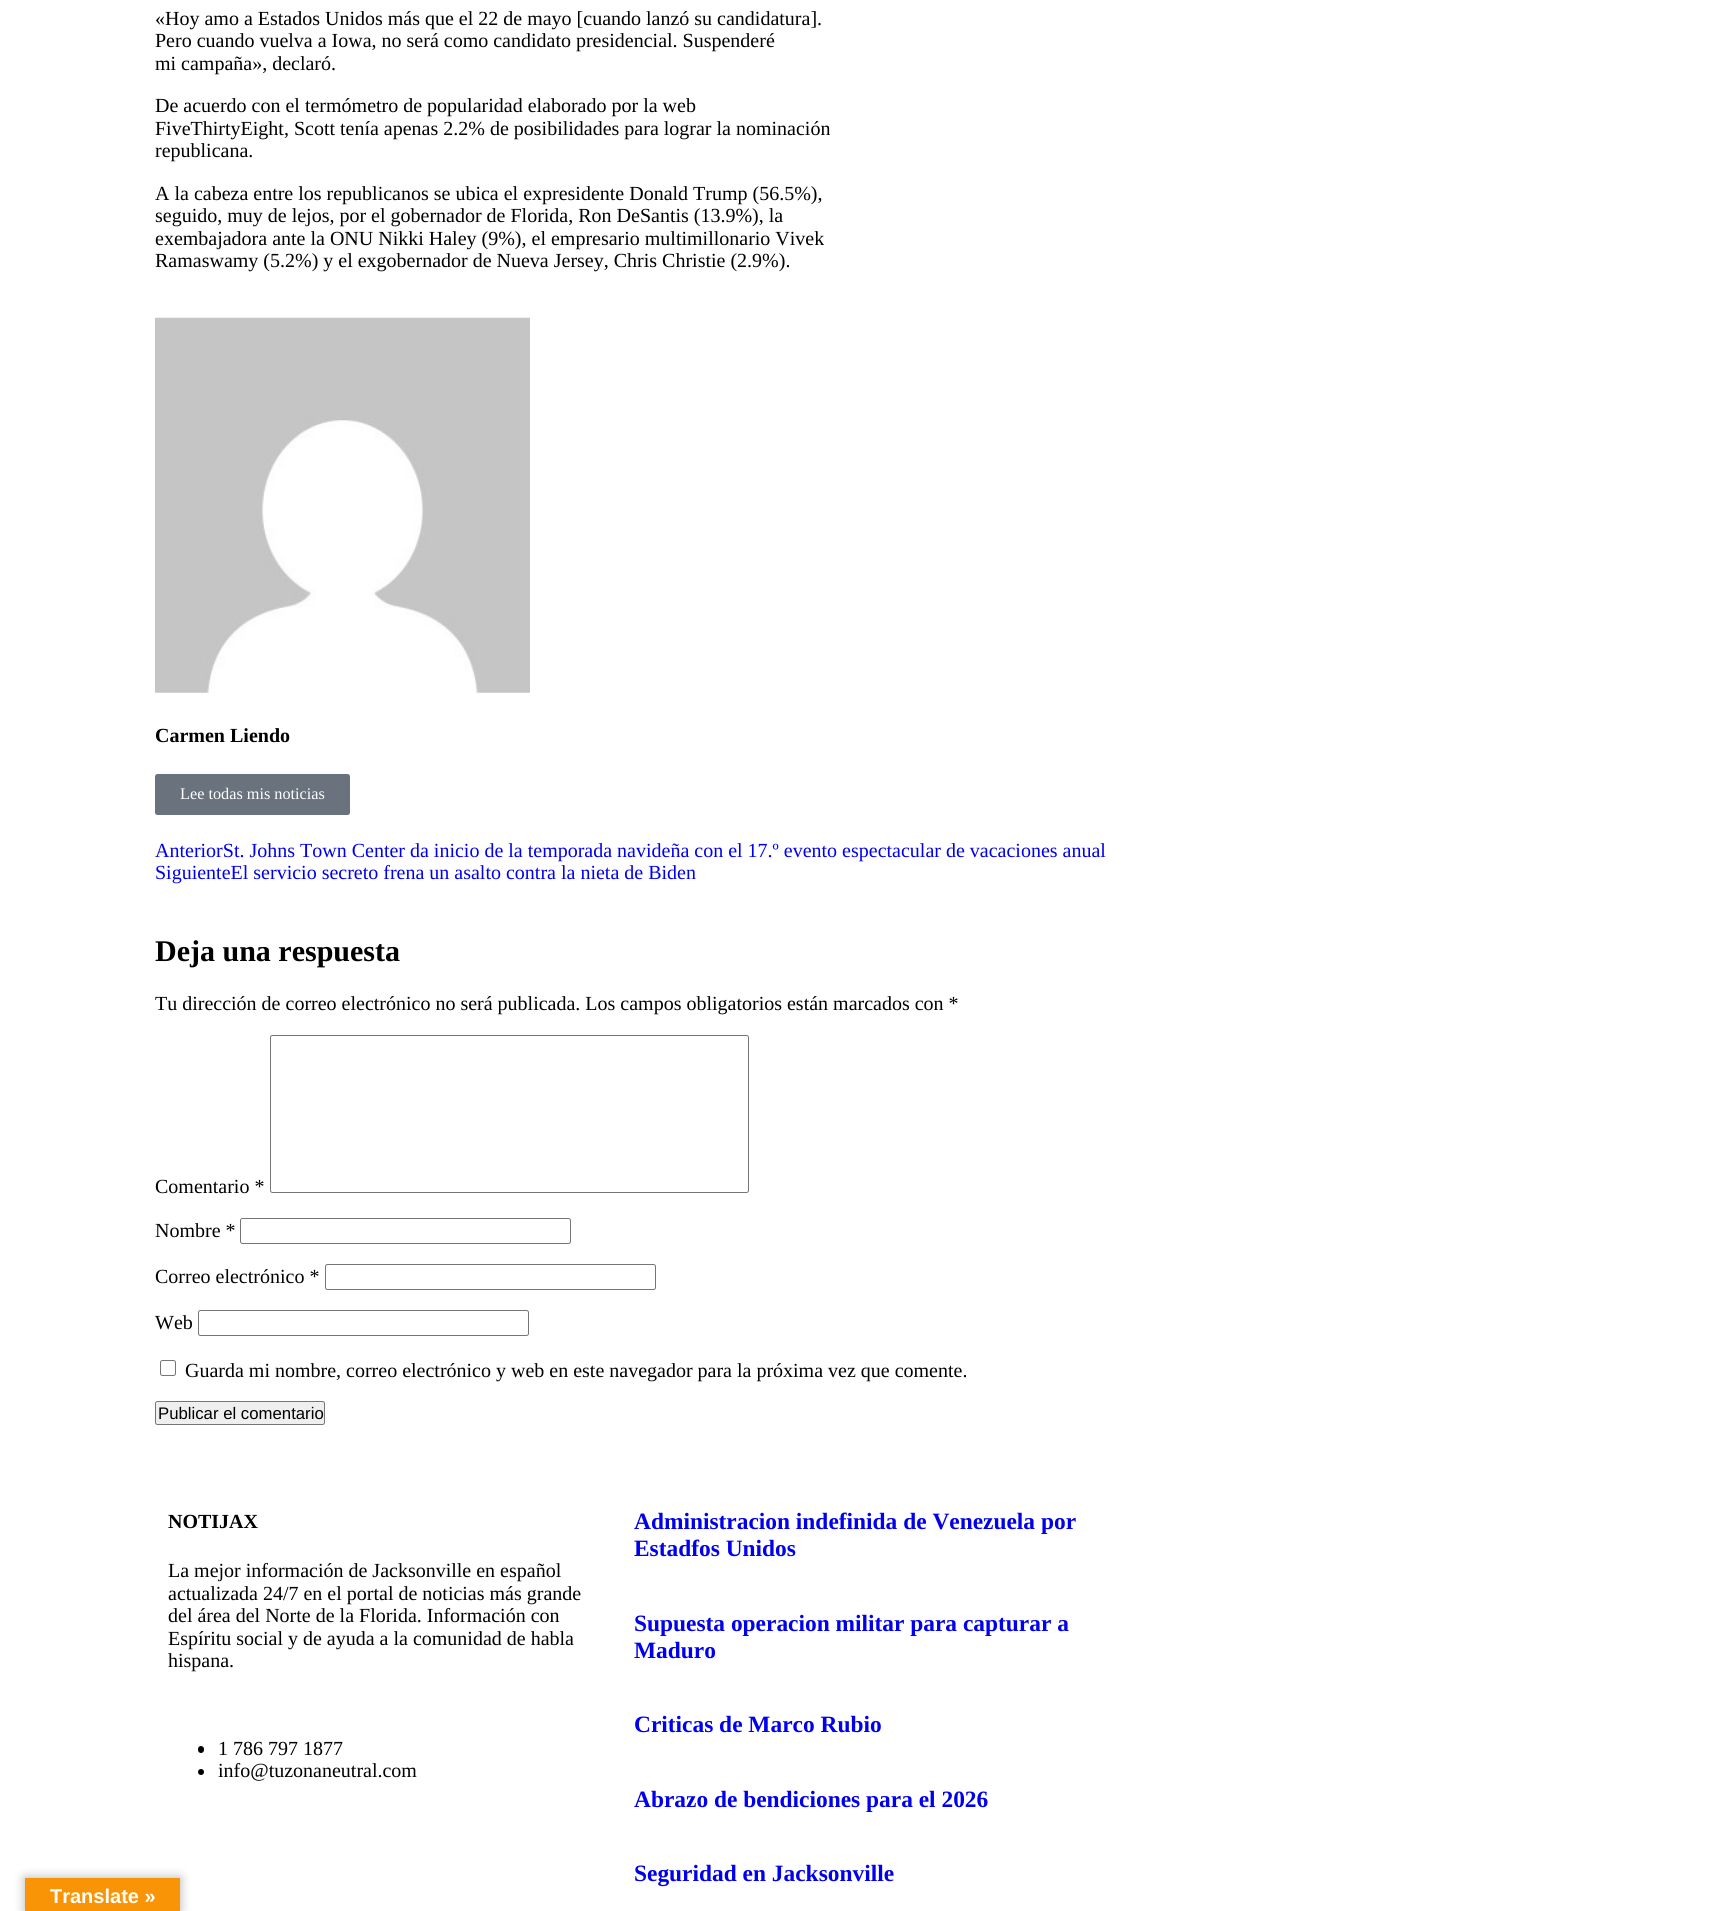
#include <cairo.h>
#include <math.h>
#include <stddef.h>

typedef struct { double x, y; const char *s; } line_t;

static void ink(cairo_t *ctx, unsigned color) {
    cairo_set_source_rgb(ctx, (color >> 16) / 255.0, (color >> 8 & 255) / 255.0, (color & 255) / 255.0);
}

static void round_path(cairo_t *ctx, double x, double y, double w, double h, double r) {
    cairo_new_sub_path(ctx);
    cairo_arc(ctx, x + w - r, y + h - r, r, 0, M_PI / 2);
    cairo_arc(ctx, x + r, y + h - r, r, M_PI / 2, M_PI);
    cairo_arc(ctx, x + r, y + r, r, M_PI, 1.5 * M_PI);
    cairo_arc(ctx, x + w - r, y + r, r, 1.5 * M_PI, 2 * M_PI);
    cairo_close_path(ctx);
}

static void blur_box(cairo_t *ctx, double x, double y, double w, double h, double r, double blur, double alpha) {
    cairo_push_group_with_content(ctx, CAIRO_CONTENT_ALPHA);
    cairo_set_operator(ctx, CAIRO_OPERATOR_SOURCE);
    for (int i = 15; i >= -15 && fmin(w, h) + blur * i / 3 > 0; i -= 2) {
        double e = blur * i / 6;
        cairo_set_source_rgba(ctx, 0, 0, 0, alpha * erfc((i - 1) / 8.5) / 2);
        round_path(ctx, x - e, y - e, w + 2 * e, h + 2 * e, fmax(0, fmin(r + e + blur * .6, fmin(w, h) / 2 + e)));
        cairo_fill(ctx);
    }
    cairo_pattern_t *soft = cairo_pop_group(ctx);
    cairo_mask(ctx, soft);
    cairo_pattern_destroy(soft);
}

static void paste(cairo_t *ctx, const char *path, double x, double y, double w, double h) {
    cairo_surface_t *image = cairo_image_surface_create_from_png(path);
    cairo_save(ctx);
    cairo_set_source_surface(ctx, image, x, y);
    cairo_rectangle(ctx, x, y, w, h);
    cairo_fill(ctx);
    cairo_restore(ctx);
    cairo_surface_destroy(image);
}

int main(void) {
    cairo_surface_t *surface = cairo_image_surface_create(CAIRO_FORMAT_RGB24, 1710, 1911);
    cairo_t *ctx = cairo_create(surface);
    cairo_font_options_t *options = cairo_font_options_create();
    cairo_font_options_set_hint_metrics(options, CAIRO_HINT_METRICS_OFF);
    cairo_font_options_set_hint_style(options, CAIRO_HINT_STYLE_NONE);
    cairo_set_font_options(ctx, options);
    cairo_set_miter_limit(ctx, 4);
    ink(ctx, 0xFFFFFF);
    cairo_paint(ctx);
    cairo_select_font_face(ctx, "Liberation Serif", CAIRO_FONT_SLANT_NORMAL, CAIRO_FONT_WEIGHT_NORMAL);
    cairo_set_font_size(ctx, 20);
    ink(ctx, 0x000000);
    {
        static const line_t items[] = {
            {155, 25, "«Hoy amo a Estados Unidos más que el 22 de mayo [cuando lanzó su candidatura]."},
            {155, 47, "Pero cuando vuelva a Iowa, no será como candidato presidencial. Suspenderé"},
            {155, 70, "mi campaña», declaró."},
            {155, 112, "De acuerdo con el termómetro de popularidad elaborado por la web"},
            {155, 135, "FiveThirtyEight, Scott tenía apenas 2.2% de posibilidades para lograr la nominación"},
            {155, 157, "republicana."},
            {155, 200, "A la cabeza entre los republicanos se ubica el expresidente Donald Trump (56.5%),"},
            {155, 222, "seguido, muy de lejos, por el gobernador de Florida, Ron DeSantis (13.9%), la"},
            {155, 245, "exembajadora ante la ONU Nikki Haley (9%), el empresario multimillonario Vivek"},
            {155, 267, "Ramaswamy (5.2%) y el exgobernador de Nueva Jersey, Chris Christie (2.9%)."},
        };
        for (size_t i = 0; i < sizeof items / sizeof *items; i++) {
            cairo_move_to(ctx, items[i].x, items[i].y);
            cairo_show_text(ctx, items[i].s);
        }
    }
    paste(ctx, "media/1.png", 155, 317, 375, 376);
    cairo_select_font_face(ctx, "Liberation Serif", CAIRO_FONT_SLANT_NORMAL, CAIRO_FONT_WEIGHT_BOLD);
    cairo_move_to(ctx, 155, 742);
    cairo_show_text(ctx, "Carmen Liendo");
    ink(ctx, 0x69727D);
    round_path(ctx, 155, 774, 195, 41, 2.5);
    cairo_fill(ctx);
    cairo_select_font_face(ctx, "Liberation Serif", CAIRO_FONT_SLANT_NORMAL, CAIRO_FONT_WEIGHT_NORMAL);
    cairo_set_font_size(ctx, 16.25);
    ink(ctx, 0xFFFFFF);
    cairo_move_to(ctx, 180, 799);
    cairo_show_text(ctx, "Lee todas mis noticias");
    cairo_set_font_size(ctx, 20);
    ink(ctx, 0x0000EE);
    cairo_move_to(ctx, 155, 857);
    cairo_show_text(ctx, "AnteriorSt. Johns Town Center da inicio de la temporada navideña con el 17.º evento espectacular de vacaciones anual");
    cairo_move_to(ctx, 155, 879);
    cairo_show_text(ctx, "SiguienteEl servicio secreto frena un asalto contra la nieta de Biden");
    cairo_select_font_face(ctx, "Liberation Serif", CAIRO_FONT_SLANT_NORMAL, CAIRO_FONT_WEIGHT_BOLD);
    cairo_set_font_size(ctx, 30);
    ink(ctx, 0x000000);
    cairo_move_to(ctx, 155, 961);
    cairo_show_text(ctx, "Deja una respuesta");
    cairo_select_font_face(ctx, "Liberation Serif", CAIRO_FONT_SLANT_NORMAL, CAIRO_FONT_WEIGHT_NORMAL);
    cairo_set_font_size(ctx, 20);
    cairo_move_to(ctx, 155, 1010);
    cairo_show_text(ctx, "Tu dirección de correo electrónico no será publicada. Los campos obligatorios están marcados con *");
    cairo_move_to(ctx, 155, 1193);
    cairo_show_text(ctx, "Comentario *");
    round_path(ctx, 270.5, 1035.5, 478, 157, 2);
    ink(ctx, 0x767676);
    cairo_set_line_width(ctx, 1);
    cairo_stroke(ctx);
    ink(ctx, 0x000000);
    cairo_move_to(ctx, 155, 1237);
    cairo_show_text(ctx, "Nombre *");
    round_path(ctx, 240.5, 1218.5, 330, 25, 2);
    ink(ctx, 0x767676);
    cairo_stroke(ctx);
    ink(ctx, 0x000000);
    cairo_move_to(ctx, 155, 1283);
    cairo_show_text(ctx, "Correo electrónico *");
    round_path(ctx, 325.5, 1264.5, 330, 25, 2);
    ink(ctx, 0x767676);
    cairo_stroke(ctx);
    ink(ctx, 0x000000);
    cairo_move_to(ctx, 155, 1329);
    cairo_show_text(ctx, "Web");
    round_path(ctx, 198.5, 1310.5, 330, 25, 2);
    ink(ctx, 0x767676);
    cairo_stroke(ctx);
    round_path(ctx, 160.5, 1360.5, 15, 15, 2);
    cairo_stroke(ctx);
    ink(ctx, 0x000000);
    cairo_move_to(ctx, 185, 1377);
    cairo_show_text(ctx, "Guarda mi nombre, correo electrónico y web en este navegador para la próxima vez que comente.");
    ink(ctx, 0xEFEFEF);
    round_path(ctx, 155.5, 1401.5, 169, 23, 2);
    cairo_fill_preserve(ctx);
    ink(ctx, 0x767676);
    cairo_stroke(ctx);
    cairo_select_font_face(ctx, "Liberation Sans", CAIRO_FONT_SLANT_NORMAL, CAIRO_FONT_WEIGHT_NORMAL);
    cairo_set_font_size(ctx, 16.75);
    ink(ctx, 0x000000);
    cairo_move_to(ctx, 158, 1419);
    cairo_show_text(ctx, "Publicar el comentario");
    cairo_select_font_face(ctx, "Liberation Serif", CAIRO_FONT_SLANT_NORMAL, CAIRO_FONT_WEIGHT_BOLD);
    cairo_set_font_size(ctx, 20);
    cairo_move_to(ctx, 168, 1528);
    cairo_show_text(ctx, "NOTIJAX");
    cairo_select_font_face(ctx, "Liberation Serif", CAIRO_FONT_SLANT_NORMAL, CAIRO_FONT_WEIGHT_NORMAL);
    {
        static const line_t items[] = {
            {168, 1577, "La mejor información de Jacksonville en español"},
            {168, 1600, "actualizada 24/7 en el portal de noticias más grande"},
            {168, 1622, "del área del Norte de la Florida. Información con"},
            {168, 1645, "Espíritu social y de ayuda a la comunidad de habla"},
            {168, 1667, "hispana."},
        };
        for (size_t i = 0; i < sizeof items / sizeof *items; i++) {
            cairo_move_to(ctx, items[i].x, items[i].y);
            cairo_show_text(ctx, items[i].s);
        }
    }
    round_path(ctx, 198, 1746, 6, 7, 3);
    cairo_fill(ctx);
    cairo_move_to(ctx, 218, 1755);
    cairo_show_text(ctx, "1 786 797 1877");
    cairo_new_path(ctx);
    cairo_arc(ctx, 201, 1772, 3, 0, 2 * M_PI);
    cairo_fill(ctx);
    cairo_move_to(ctx, 218, 1777);
    cairo_show_text(ctx, "info@tuzonaneutral.com");
    cairo_select_font_face(ctx, "Liberation Serif", CAIRO_FONT_SLANT_NORMAL, CAIRO_FONT_WEIGHT_BOLD);
    cairo_set_font_size(ctx, 23.4);
    ink(ctx, 0x0000EE);
    {
        static const line_t items[] = {
            {634, 1529, "Administracion indefinida de Venezuela por"},
            {634, 1556, "Estadfos Unidos"},
            {634, 1631, "Supuesta operacion militar para capturar a"},
            {634, 1658, "Maduro"},
            {634, 1732, "Criticas de Marco Rubio"},
            {634, 1807, "Abrazo de bendiciones para el 2026"},
            {634, 1881, "Seguridad en Jacksonville"},
        };
        for (size_t i = 0; i < sizeof items / sizeof *items; i++) {
            cairo_move_to(ctx, items[i].x, items[i].y);
            cairo_show_text(ctx, items[i].s);
        }
    }
    ink(ctx, 0x000000);
    blur_box(ctx, 25, 1878, 155, 33, 0, 5.5, 0.3);
    ink(ctx, 0xF89406);
    cairo_rectangle(ctx, 25, 1878, 155, 33);
    cairo_fill(ctx);
    cairo_select_font_face(ctx, "Liberation Sans", CAIRO_FONT_SLANT_NORMAL, CAIRO_FONT_WEIGHT_BOLD);
    cairo_set_font_size(ctx, 20);
    ink(ctx, 0xFFFFFF);
    cairo_move_to(ctx, 50, 1903);
    cairo_show_text(ctx, "Translate »");
    cairo_surface_write_to_png(surface, "image.png");
    cairo_font_options_destroy(options);
    cairo_destroy(ctx);
    cairo_surface_destroy(surface);
    return 0;
}
